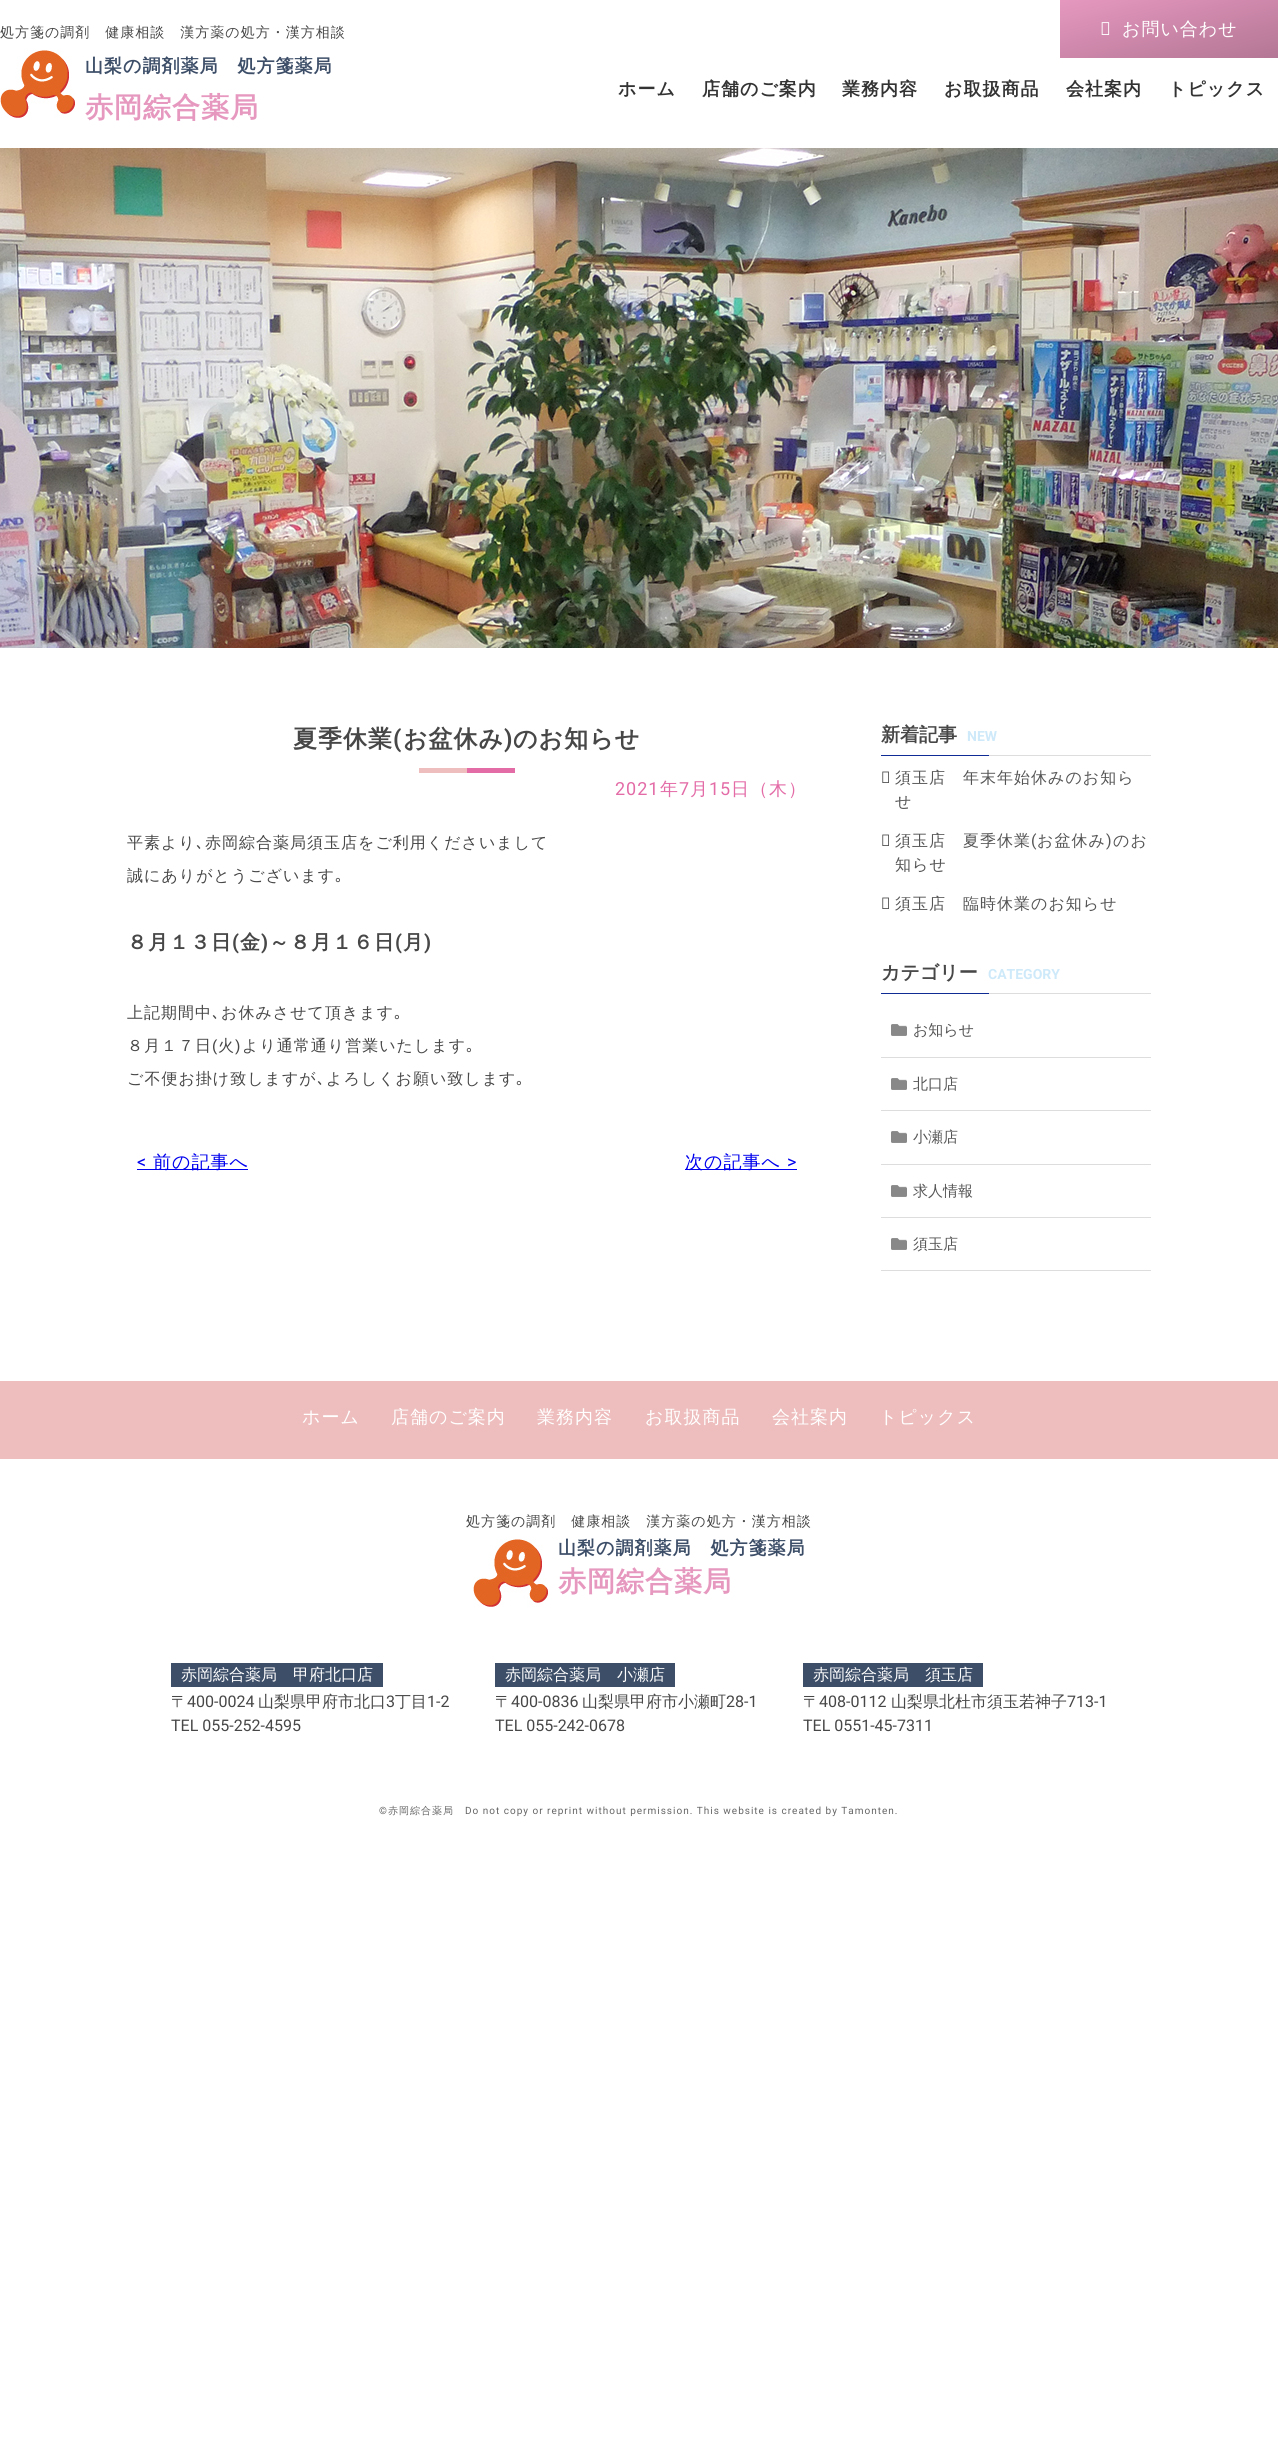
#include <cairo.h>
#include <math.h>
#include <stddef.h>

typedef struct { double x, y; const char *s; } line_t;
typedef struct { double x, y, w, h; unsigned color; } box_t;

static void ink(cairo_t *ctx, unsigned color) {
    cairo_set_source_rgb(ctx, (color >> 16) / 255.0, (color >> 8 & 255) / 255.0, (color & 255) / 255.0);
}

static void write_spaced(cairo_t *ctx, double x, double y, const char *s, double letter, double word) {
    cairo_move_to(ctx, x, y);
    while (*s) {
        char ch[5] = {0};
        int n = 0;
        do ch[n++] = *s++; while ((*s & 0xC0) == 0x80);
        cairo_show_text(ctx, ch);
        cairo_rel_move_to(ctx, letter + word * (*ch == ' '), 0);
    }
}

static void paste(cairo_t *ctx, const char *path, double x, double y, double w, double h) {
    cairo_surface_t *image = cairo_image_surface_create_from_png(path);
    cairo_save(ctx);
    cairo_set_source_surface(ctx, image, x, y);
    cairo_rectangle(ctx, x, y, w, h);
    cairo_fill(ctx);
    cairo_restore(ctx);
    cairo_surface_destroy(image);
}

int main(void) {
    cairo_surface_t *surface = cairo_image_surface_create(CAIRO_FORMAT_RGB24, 1278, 2444);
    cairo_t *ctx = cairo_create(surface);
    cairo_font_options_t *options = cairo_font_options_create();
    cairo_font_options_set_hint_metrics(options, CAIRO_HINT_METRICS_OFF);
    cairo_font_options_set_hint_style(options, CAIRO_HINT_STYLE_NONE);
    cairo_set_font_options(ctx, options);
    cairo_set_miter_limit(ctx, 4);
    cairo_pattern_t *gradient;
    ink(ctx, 0xFFFFFF);
    cairo_paint(ctx);
    cairo_select_font_face(ctx, "WenQuanYi Zen Hei Medium", CAIRO_FONT_SLANT_NORMAL, CAIRO_FONT_WEIGHT_NORMAL);
    cairo_set_font_size(ctx, 14);
    ink(ctx, 0x484747);
    write_spaced(ctx, 0, 37, "処方箋の調剤　健康相談　漢方薬の処方・漢方相談", 1, 0);
    paste(ctx, "media/1.png", 0, 50, 75, 68);
    cairo_select_font_face(ctx, "WenQuanYi Zen Hei", CAIRO_FONT_SLANT_NORMAL, CAIRO_FONT_WEIGHT_BOLD);
    cairo_set_font_size(ctx, 18);
    ink(ctx, 0x3D4E68);
    write_spaced(ctx, 85, 72, "山梨の調剤薬局　処方箋薬局", 1, 0);
    cairo_set_font_size(ctx, 28);
    ink(ctx, 0xE698BF);
    write_spaced(ctx, 85, 117, "赤岡綜合薬局", 1, 0);
    gradient = cairo_pattern_create_linear(1155, -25, 1183, 83);
    cairo_pattern_add_color_stop_rgba(gradient, 0, 0.902, 0.596, 0.749, 1);
    cairo_pattern_add_color_stop_rgba(gradient, 1, 0.702, 0.463, 0.58, 1);
    cairo_set_source(ctx, gradient);
    cairo_pattern_destroy(gradient);
    cairo_rectangle(ctx, 1060, 0, 218, 58);
    cairo_fill(ctx);
    paste(ctx, "media/2.png", 1101, 22, 9, 13);
    cairo_select_font_face(ctx, "WenQuanYi Zen Hei Medium", CAIRO_FONT_SLANT_NORMAL, CAIRO_FONT_WEIGHT_NORMAL);
    cairo_set_font_size(ctx, 18);
    ink(ctx, 0xFFFFFF);
    write_spaced(ctx, 1122, 35, "お問い合わせ", 1, 0);
    cairo_select_font_face(ctx, "WenQuanYi Zen Hei", CAIRO_FONT_SLANT_NORMAL, CAIRO_FONT_WEIGHT_BOLD);
    ink(ctx, 0x333333);
    {
        static const line_t items[] = {
            {618, 95, "ホーム"},
            {702, 95, "店舗のご案内"},
            {842, 95, "業務内容"},
            {944, 95, "お取扱商品"},
            {1066, 95, "会社案内"},
            {1168, 95, "トピックス"},
        };
        for (size_t i = 0; i < sizeof items / sizeof *items; i++) {
            write_spaced(ctx, items[i].x, items[i].y, items[i].s, 1, 0);
        }
    }
    paste(ctx, "media/3.png", 0, 148, 1278, 500);
    cairo_set_font_size(ctx, 24);
    ink(ctx, 0x484747);
    write_spaced(ctx, 293, 747, "夏季休業", 1, 0);
    cairo_select_font_face(ctx, "Roboto", CAIRO_FONT_SLANT_NORMAL, CAIRO_FONT_WEIGHT_BOLD);
    write_spaced(ctx, 393, 747, "(", 1, 0);
    cairo_select_font_face(ctx, "WenQuanYi Zen Hei", CAIRO_FONT_SLANT_NORMAL, CAIRO_FONT_WEIGHT_BOLD);
    write_spaced(ctx, 403, 747, "お盆休み", 1, 0);
    cairo_select_font_face(ctx, "Roboto", CAIRO_FONT_SLANT_NORMAL, CAIRO_FONT_WEIGHT_BOLD);
    write_spaced(ctx, 504, 747, ")", 1, 0);
    cairo_select_font_face(ctx, "WenQuanYi Zen Hei", CAIRO_FONT_SLANT_NORMAL, CAIRO_FONT_WEIGHT_BOLD);
    write_spaced(ctx, 513, 747, "のお知らせ", 1, 0);
    ink(ctx, 0xEEBDBD);
    cairo_rectangle(ctx, 419, 768, 48, 5);
    cairo_fill(ctx);
    ink(ctx, 0xE36CA7);
    cairo_rectangle(ctx, 467, 768, 48, 5);
    cairo_fill(ctx);
    cairo_select_font_face(ctx, "Roboto", CAIRO_FONT_SLANT_NORMAL, CAIRO_FONT_WEIGHT_NORMAL);
    cairo_set_font_size(ctx, 18);
    write_spaced(ctx, 615, 795, "2021", 1, 0);
    cairo_select_font_face(ctx, "WenQuanYi Zen Hei Medium", CAIRO_FONT_SLANT_NORMAL, CAIRO_FONT_WEIGHT_NORMAL);
    write_spaced(ctx, 660, 795, "年", 1, 0);
    cairo_select_font_face(ctx, "Roboto", CAIRO_FONT_SLANT_NORMAL, CAIRO_FONT_WEIGHT_NORMAL);
    write_spaced(ctx, 679, 795, "7", 1, 0);
    cairo_select_font_face(ctx, "WenQuanYi Zen Hei Medium", CAIRO_FONT_SLANT_NORMAL, CAIRO_FONT_WEIGHT_NORMAL);
    write_spaced(ctx, 690, 795, "月", 1, 0);
    cairo_select_font_face(ctx, "Roboto", CAIRO_FONT_SLANT_NORMAL, CAIRO_FONT_WEIGHT_NORMAL);
    write_spaced(ctx, 709, 795, "15", 1, 0);
    cairo_select_font_face(ctx, "WenQuanYi Zen Hei Medium", CAIRO_FONT_SLANT_NORMAL, CAIRO_FONT_WEIGHT_NORMAL);
    write_spaced(ctx, 731, 795, "日（木）", 1, 0);
    cairo_set_font_size(ctx, 16);
    ink(ctx, 0x484747);
    write_spaced(ctx, 127, 848, "平素より", 1, 0);
    cairo_select_font_face(ctx, "IPAPGothic", CAIRO_FONT_SLANT_NORMAL, CAIRO_FONT_WEIGHT_NORMAL);
    write_spaced(ctx, 196, 848, "､", 1, 0);
    cairo_select_font_face(ctx, "WenQuanYi Zen Hei Medium", CAIRO_FONT_SLANT_NORMAL, CAIRO_FONT_WEIGHT_NORMAL);
    write_spaced(ctx, 205, 848, "赤岡綜合薬局須玉店をご利用くださいまして", 1, 0);
    write_spaced(ctx, 127, 881, "誠にありがとうございます", 1, 0);
    cairo_select_font_face(ctx, "IPAPGothic", CAIRO_FONT_SLANT_NORMAL, CAIRO_FONT_WEIGHT_NORMAL);
    write_spaced(ctx, 335, 881, "｡", 1, 0);
    cairo_select_font_face(ctx, "WenQuanYi Zen Hei", CAIRO_FONT_SLANT_NORMAL, CAIRO_FONT_WEIGHT_BOLD);
    cairo_set_font_size(ctx, 20);
    write_spaced(ctx, 127, 949, "８月１３日", 1, 0);
    cairo_select_font_face(ctx, "Roboto", CAIRO_FONT_SLANT_NORMAL, CAIRO_FONT_WEIGHT_BOLD);
    write_spaced(ctx, 232, 949, "(", 1, 0);
    cairo_select_font_face(ctx, "WenQuanYi Zen Hei", CAIRO_FONT_SLANT_NORMAL, CAIRO_FONT_WEIGHT_BOLD);
    write_spaced(ctx, 240, 949, "金", 1, 0);
    cairo_select_font_face(ctx, "Roboto", CAIRO_FONT_SLANT_NORMAL, CAIRO_FONT_WEIGHT_BOLD);
    write_spaced(ctx, 261, 949, ")", 1, 0);
    cairo_select_font_face(ctx, "WenQuanYi Zen Hei", CAIRO_FONT_SLANT_NORMAL, CAIRO_FONT_WEIGHT_BOLD);
    write_spaced(ctx, 269, 949, "～８月１６日", 1, 0);
    cairo_select_font_face(ctx, "Roboto", CAIRO_FONT_SLANT_NORMAL, CAIRO_FONT_WEIGHT_BOLD);
    write_spaced(ctx, 395, 949, "(", 1, 0);
    cairo_select_font_face(ctx, "WenQuanYi Zen Hei", CAIRO_FONT_SLANT_NORMAL, CAIRO_FONT_WEIGHT_BOLD);
    write_spaced(ctx, 403, 949, "月", 1, 0);
    cairo_select_font_face(ctx, "Roboto", CAIRO_FONT_SLANT_NORMAL, CAIRO_FONT_WEIGHT_BOLD);
    write_spaced(ctx, 424, 949, ")", 1, 0);
    cairo_select_font_face(ctx, "WenQuanYi Zen Hei Medium", CAIRO_FONT_SLANT_NORMAL, CAIRO_FONT_WEIGHT_NORMAL);
    cairo_set_font_size(ctx, 16);
    write_spaced(ctx, 127, 1018, "上記期間中", 1, 0);
    cairo_select_font_face(ctx, "IPAPGothic", CAIRO_FONT_SLANT_NORMAL, CAIRO_FONT_WEIGHT_NORMAL);
    write_spaced(ctx, 212, 1018, "､", 1, 0);
    cairo_select_font_face(ctx, "WenQuanYi Zen Hei Medium", CAIRO_FONT_SLANT_NORMAL, CAIRO_FONT_WEIGHT_NORMAL);
    write_spaced(ctx, 221, 1018, "お休みさせて頂きます", 1, 0);
    cairo_select_font_face(ctx, "IPAPGothic", CAIRO_FONT_SLANT_NORMAL, CAIRO_FONT_WEIGHT_NORMAL);
    write_spaced(ctx, 394, 1018, "｡", 1, 0);
    cairo_select_font_face(ctx, "WenQuanYi Zen Hei Medium", CAIRO_FONT_SLANT_NORMAL, CAIRO_FONT_WEIGHT_NORMAL);
    write_spaced(ctx, 127, 1051, "８月１７日", 1, 0);
    cairo_select_font_face(ctx, "Liberation Sans", CAIRO_FONT_SLANT_NORMAL, CAIRO_FONT_WEIGHT_NORMAL);
    write_spaced(ctx, 212, 1051, "(", 1, 0);
    cairo_select_font_face(ctx, "WenQuanYi Zen Hei Medium", CAIRO_FONT_SLANT_NORMAL, CAIRO_FONT_WEIGHT_NORMAL);
    write_spaced(ctx, 218, 1051, "火", 1, 0);
    cairo_select_font_face(ctx, "Liberation Sans", CAIRO_FONT_SLANT_NORMAL, CAIRO_FONT_WEIGHT_NORMAL);
    write_spaced(ctx, 235, 1051, ")", 1, 0);
    cairo_select_font_face(ctx, "WenQuanYi Zen Hei Medium", CAIRO_FONT_SLANT_NORMAL, CAIRO_FONT_WEIGHT_NORMAL);
    write_spaced(ctx, 242, 1051, "より通常通り営業いたします", 1, 0);
    cairo_select_font_face(ctx, "IPAPGothic", CAIRO_FONT_SLANT_NORMAL, CAIRO_FONT_WEIGHT_NORMAL);
    write_spaced(ctx, 466, 1051, "｡", 1, 0);
    cairo_select_font_face(ctx, "WenQuanYi Zen Hei Medium", CAIRO_FONT_SLANT_NORMAL, CAIRO_FONT_WEIGHT_NORMAL);
    write_spaced(ctx, 127, 1084, "ご不便お掛け致しますが", 1, 0);
    cairo_select_font_face(ctx, "IPAPGothic", CAIRO_FONT_SLANT_NORMAL, CAIRO_FONT_WEIGHT_NORMAL);
    write_spaced(ctx, 317, 1084, "､", 1, 0);
    cairo_select_font_face(ctx, "WenQuanYi Zen Hei Medium", CAIRO_FONT_SLANT_NORMAL, CAIRO_FONT_WEIGHT_NORMAL);
    write_spaced(ctx, 326, 1084, "よろしくお願い致します", 1, 0);
    cairo_select_font_face(ctx, "IPAPGothic", CAIRO_FONT_SLANT_NORMAL, CAIRO_FONT_WEIGHT_NORMAL);
    write_spaced(ctx, 516, 1084, "｡", 1, 0);
    cairo_select_font_face(ctx, "Roboto", CAIRO_FONT_SLANT_NORMAL, CAIRO_FONT_WEIGHT_NORMAL);
    cairo_set_font_size(ctx, 18);
    ink(ctx, 0x0000EE);
    write_spaced(ctx, 137, 1168, "<", 1, 0);
    cairo_rectangle(ctx, 137, 1169, 111, 1);
    cairo_fill(ctx);
    cairo_select_font_face(ctx, "WenQuanYi Zen Hei Medium", CAIRO_FONT_SLANT_NORMAL, CAIRO_FONT_WEIGHT_NORMAL);
    write_spaced(ctx, 153, 1168, "前の記事へ", 1, 0);
    cairo_rectangle(ctx, 685, 1169, 112, 1);
    cairo_fill(ctx);
    write_spaced(ctx, 685, 1168, "次の記事へ", 1, 0);
    cairo_select_font_face(ctx, "Roboto", CAIRO_FONT_SLANT_NORMAL, CAIRO_FONT_WEIGHT_NORMAL);
    write_spaced(ctx, 787, 1168, ">", 1, 0);
    cairo_select_font_face(ctx, "WenQuanYi Zen Hei", CAIRO_FONT_SLANT_NORMAL, CAIRO_FONT_WEIGHT_BOLD);
    cairo_set_font_size(ctx, 19);
    ink(ctx, 0x484747);
    cairo_move_to(ctx, 881, 741);
    cairo_show_text(ctx, "新着記事");
    cairo_select_font_face(ctx, "Roboto", CAIRO_FONT_SLANT_NORMAL, CAIRO_FONT_WEIGHT_BOLD);
    cairo_set_font_size(ctx, 14);
    ink(ctx, 0xCEE9F9);
    cairo_move_to(ctx, 967, 741);
    cairo_show_text(ctx, "NEW");
    ink(ctx, 0x0F2B94);
    cairo_rectangle(ctx, 881, 755, 108, 1);
    cairo_fill(ctx);
    ink(ctx, 0xDDDDDD);
    cairo_rectangle(ctx, 989, 755, 162, 1);
    cairo_fill(ctx);
    paste(ctx, "media/4.png", 882, 771, 7, 12);
    cairo_select_font_face(ctx, "WenQuanYi Zen Hei Medium", CAIRO_FONT_SLANT_NORMAL, CAIRO_FONT_WEIGHT_NORMAL);
    cairo_set_font_size(ctx, 16);
    ink(ctx, 0x555555);
    write_spaced(ctx, 895, 783, "須玉店　年末年始休みのお知ら", 1, 0);
    write_spaced(ctx, 895, 807, "せ", 1, 0);
    paste(ctx, "media/4.png", 882, 834, 7, 12);
    write_spaced(ctx, 895, 846, "須玉店　夏季休業", 1, 0);
    cairo_select_font_face(ctx, "Roboto", CAIRO_FONT_SLANT_NORMAL, CAIRO_FONT_WEIGHT_NORMAL);
    write_spaced(ctx, 1031, 846, "(", 1, 0);
    cairo_select_font_face(ctx, "WenQuanYi Zen Hei Medium", CAIRO_FONT_SLANT_NORMAL, CAIRO_FONT_WEIGHT_NORMAL);
    write_spaced(ctx, 1037, 846, "お盆休み", 1, 0);
    cairo_select_font_face(ctx, "Roboto", CAIRO_FONT_SLANT_NORMAL, CAIRO_FONT_WEIGHT_NORMAL);
    write_spaced(ctx, 1106, 846, ")", 1, 0);
    cairo_select_font_face(ctx, "WenQuanYi Zen Hei Medium", CAIRO_FONT_SLANT_NORMAL, CAIRO_FONT_WEIGHT_NORMAL);
    write_spaced(ctx, 1113, 846, "のお", 1, 0);
    write_spaced(ctx, 895, 870, "知らせ", 1, 0);
    paste(ctx, "media/4.png", 882, 897, 7, 12);
    write_spaced(ctx, 895, 909, "須玉店　臨時休業のお知らせ", 1, 0);
    cairo_select_font_face(ctx, "WenQuanYi Zen Hei", CAIRO_FONT_SLANT_NORMAL, CAIRO_FONT_WEIGHT_BOLD);
    cairo_set_font_size(ctx, 19);
    ink(ctx, 0x484747);
    cairo_move_to(ctx, 881, 979);
    cairo_show_text(ctx, "カテゴリー");
    cairo_select_font_face(ctx, "Roboto", CAIRO_FONT_SLANT_NORMAL, CAIRO_FONT_WEIGHT_BOLD);
    cairo_set_font_size(ctx, 14);
    ink(ctx, 0xCEE9F9);
    cairo_move_to(ctx, 988, 979);
    cairo_show_text(ctx, "CATEGORY");
    {
        static const box_t items[] = {
            {881, 993, 108, 1, 0x0F2B94},
            {989, 993, 162, 1, 0xDDDDDD},
            {881, 1057, 270, 1, 0xDDDDDD},
        };
        for (size_t i = 0; i < sizeof items / sizeof *items; i++) {
            ink(ctx, items[i].color);
            cairo_rectangle(ctx, items[i].x, items[i].y, items[i].w, items[i].h);
            cairo_fill(ctx);
        }
    }
    paste(ctx, "media/5.png", 891, 1024, 16, 12);
    cairo_select_font_face(ctx, "WenQuanYi Zen Hei Medium", CAIRO_FONT_SLANT_NORMAL, CAIRO_FONT_WEIGHT_NORMAL);
    cairo_set_font_size(ctx, 15);
    ink(ctx, 0x555555);
    cairo_move_to(ctx, 913, 1035);
    cairo_show_text(ctx, "お知らせ");
    ink(ctx, 0xDDDDDD);
    cairo_rectangle(ctx, 881, 1110, 270, 1);
    cairo_fill(ctx);
    paste(ctx, "media/5.png", 891, 1078, 16, 12);
    ink(ctx, 0x555555);
    cairo_move_to(ctx, 913, 1089);
    cairo_show_text(ctx, "北口店");
    ink(ctx, 0xDDDDDD);
    cairo_rectangle(ctx, 881, 1164, 270, 1);
    cairo_fill(ctx);
    paste(ctx, "media/5.png", 891, 1131, 16, 12);
    ink(ctx, 0x555555);
    cairo_move_to(ctx, 913, 1142);
    cairo_show_text(ctx, "小瀬店");
    ink(ctx, 0xDDDDDD);
    cairo_rectangle(ctx, 881, 1217, 270, 1);
    cairo_fill(ctx);
    paste(ctx, "media/5.png", 891, 1185, 16, 12);
    ink(ctx, 0x555555);
    cairo_move_to(ctx, 913, 1196);
    cairo_show_text(ctx, "求人情報");
    ink(ctx, 0xDDDDDD);
    cairo_rectangle(ctx, 881, 1270, 270, 1);
    cairo_fill(ctx);
    paste(ctx, "media/5.png", 891, 1238, 16, 12);
    ink(ctx, 0x555555);
    cairo_move_to(ctx, 913, 1249);
    cairo_show_text(ctx, "須玉店");
    ink(ctx, 0xEEBDBD);
    cairo_rectangle(ctx, 0, 1381, 1278, 78);
    cairo_fill(ctx);
    cairo_set_font_size(ctx, 18);
    ink(ctx, 0xFFFFFF);
    {
        static const line_t items[] = {
            {302, 1423, "ホーム"},
            {391, 1423, "店舗のご案内"},
            {537, 1423, "業務内容"},
            {645, 1423, "お取扱商品"},
            {772, 1423, "会社案内"},
            {879, 1423, "トピックス"},
        };
        for (size_t i = 0; i < sizeof items / sizeof *items; i++) {
            write_spaced(ctx, items[i].x, items[i].y, items[i].s, 1, 0);
        }
    }
    cairo_set_font_size(ctx, 14);
    ink(ctx, 0x484747);
    write_spaced(ctx, 466, 1526, "処方箋の調剤　健康相談　漢方薬の処方・漢方相談", 1, 0);
    paste(ctx, "media/1.png", 473, 1539, 75, 68);
    cairo_select_font_face(ctx, "WenQuanYi Zen Hei", CAIRO_FONT_SLANT_NORMAL, CAIRO_FONT_WEIGHT_BOLD);
    cairo_set_font_size(ctx, 18);
    ink(ctx, 0x3D4E68);
    write_spaced(ctx, 558, 1554, "山梨の調剤薬局　処方箋薬局", 1, 0);
    cairo_set_font_size(ctx, 28);
    ink(ctx, 0xE698BF);
    write_spaced(ctx, 558, 1591, "赤岡綜合薬局", 1, 0);
    ink(ctx, 0x3D4E68);
    cairo_rectangle(ctx, 171, 1663, 212, 24);
    cairo_fill(ctx);
    cairo_select_font_face(ctx, "WenQuanYi Zen Hei Medium", CAIRO_FONT_SLANT_NORMAL, CAIRO_FONT_WEIGHT_NORMAL);
    cairo_set_font_size(ctx, 16);
    ink(ctx, 0xFFFFFF);
    cairo_move_to(ctx, 181, 1680);
    cairo_show_text(ctx, "赤岡綜合薬局　甲府北口店");
    ink(ctx, 0x484747);
    cairo_move_to(ctx, 171, 1707);
    cairo_show_text(ctx, "〒");
    cairo_select_font_face(ctx, "Roboto", CAIRO_FONT_SLANT_NORMAL, CAIRO_FONT_WEIGHT_NORMAL);
    cairo_move_to(ctx, 187, 1707);
    cairo_show_text(ctx, "400-0024");
    cairo_select_font_face(ctx, "WenQuanYi Zen Hei Medium", CAIRO_FONT_SLANT_NORMAL, CAIRO_FONT_WEIGHT_NORMAL);
    cairo_move_to(ctx, 258, 1707);
    cairo_show_text(ctx, "山梨県甲府市北口");
    cairo_select_font_face(ctx, "Roboto", CAIRO_FONT_SLANT_NORMAL, CAIRO_FONT_WEIGHT_NORMAL);
    cairo_move_to(ctx, 386, 1707);
    cairo_show_text(ctx, "3");
    cairo_select_font_face(ctx, "WenQuanYi Zen Hei Medium", CAIRO_FONT_SLANT_NORMAL, CAIRO_FONT_WEIGHT_NORMAL);
    cairo_move_to(ctx, 395, 1707);
    cairo_show_text(ctx, "丁目");
    cairo_select_font_face(ctx, "Roboto", CAIRO_FONT_SLANT_NORMAL, CAIRO_FONT_WEIGHT_NORMAL);
    cairo_move_to(ctx, 427, 1707);
    cairo_show_text(ctx, "1-2");
    cairo_move_to(ctx, 171, 1731);
    cairo_show_text(ctx, "TEL 055-252-4595");
    ink(ctx, 0x3D4E68);
    cairo_rectangle(ctx, 495, 1663, 180, 24);
    cairo_fill(ctx);
    cairo_select_font_face(ctx, "WenQuanYi Zen Hei Medium", CAIRO_FONT_SLANT_NORMAL, CAIRO_FONT_WEIGHT_NORMAL);
    ink(ctx, 0xFFFFFF);
    cairo_move_to(ctx, 505, 1680);
    cairo_show_text(ctx, "赤岡綜合薬局　小瀬店");
    ink(ctx, 0x484747);
    cairo_move_to(ctx, 495, 1707);
    cairo_show_text(ctx, "〒");
    cairo_select_font_face(ctx, "Roboto", CAIRO_FONT_SLANT_NORMAL, CAIRO_FONT_WEIGHT_NORMAL);
    cairo_move_to(ctx, 511, 1707);
    cairo_show_text(ctx, "400-0836");
    cairo_select_font_face(ctx, "WenQuanYi Zen Hei Medium", CAIRO_FONT_SLANT_NORMAL, CAIRO_FONT_WEIGHT_NORMAL);
    cairo_move_to(ctx, 582, 1707);
    cairo_show_text(ctx, "山梨県甲府市小瀬町");
    cairo_select_font_face(ctx, "Roboto", CAIRO_FONT_SLANT_NORMAL, CAIRO_FONT_WEIGHT_NORMAL);
    cairo_move_to(ctx, 726, 1707);
    cairo_show_text(ctx, "28-1");
    cairo_move_to(ctx, 495, 1731);
    cairo_show_text(ctx, "TEL 055-242-0678");
    ink(ctx, 0x3D4E68);
    cairo_rectangle(ctx, 803, 1663, 180, 24);
    cairo_fill(ctx);
    cairo_select_font_face(ctx, "WenQuanYi Zen Hei Medium", CAIRO_FONT_SLANT_NORMAL, CAIRO_FONT_WEIGHT_NORMAL);
    ink(ctx, 0xFFFFFF);
    cairo_move_to(ctx, 813, 1680);
    cairo_show_text(ctx, "赤岡綜合薬局　須玉店");
    ink(ctx, 0x484747);
    cairo_move_to(ctx, 803, 1707);
    cairo_show_text(ctx, "〒");
    cairo_select_font_face(ctx, "Roboto", CAIRO_FONT_SLANT_NORMAL, CAIRO_FONT_WEIGHT_NORMAL);
    cairo_move_to(ctx, 819, 1707);
    cairo_show_text(ctx, "408-0112");
    cairo_select_font_face(ctx, "WenQuanYi Zen Hei Medium", CAIRO_FONT_SLANT_NORMAL, CAIRO_FONT_WEIGHT_NORMAL);
    cairo_move_to(ctx, 891, 1707);
    cairo_show_text(ctx, "山梨県北杜市須玉若神子");
    cairo_select_font_face(ctx, "Roboto", CAIRO_FONT_SLANT_NORMAL, CAIRO_FONT_WEIGHT_NORMAL);
    cairo_move_to(ctx, 1067, 1707);
    cairo_show_text(ctx, "713-1");
    cairo_move_to(ctx, 803, 1731);
    cairo_show_text(ctx, "TEL 0551-45-7311");
    cairo_set_font_size(ctx, 10);
    ink(ctx, 0x666666);
    write_spaced(ctx, 379, 1814, "©", 1, 0);
    cairo_select_font_face(ctx, "WenQuanYi Zen Hei Medium", CAIRO_FONT_SLANT_NORMAL, CAIRO_FONT_WEIGHT_NORMAL);
    write_spaced(ctx, 388, 1814, "赤岡綜合薬局", 1, 0);
    cairo_select_font_face(ctx, "Roboto", CAIRO_FONT_SLANT_NORMAL, CAIRO_FONT_WEIGHT_NORMAL);
    write_spaced(ctx, 465, 1814, "Do not copy or reprint without permission. This website is created by Tamonten.", 1, 0);
    cairo_surface_write_to_png(surface, "image.png");
    cairo_font_options_destroy(options);
    cairo_destroy(ctx);
    cairo_surface_destroy(surface);
    return 0;
}
